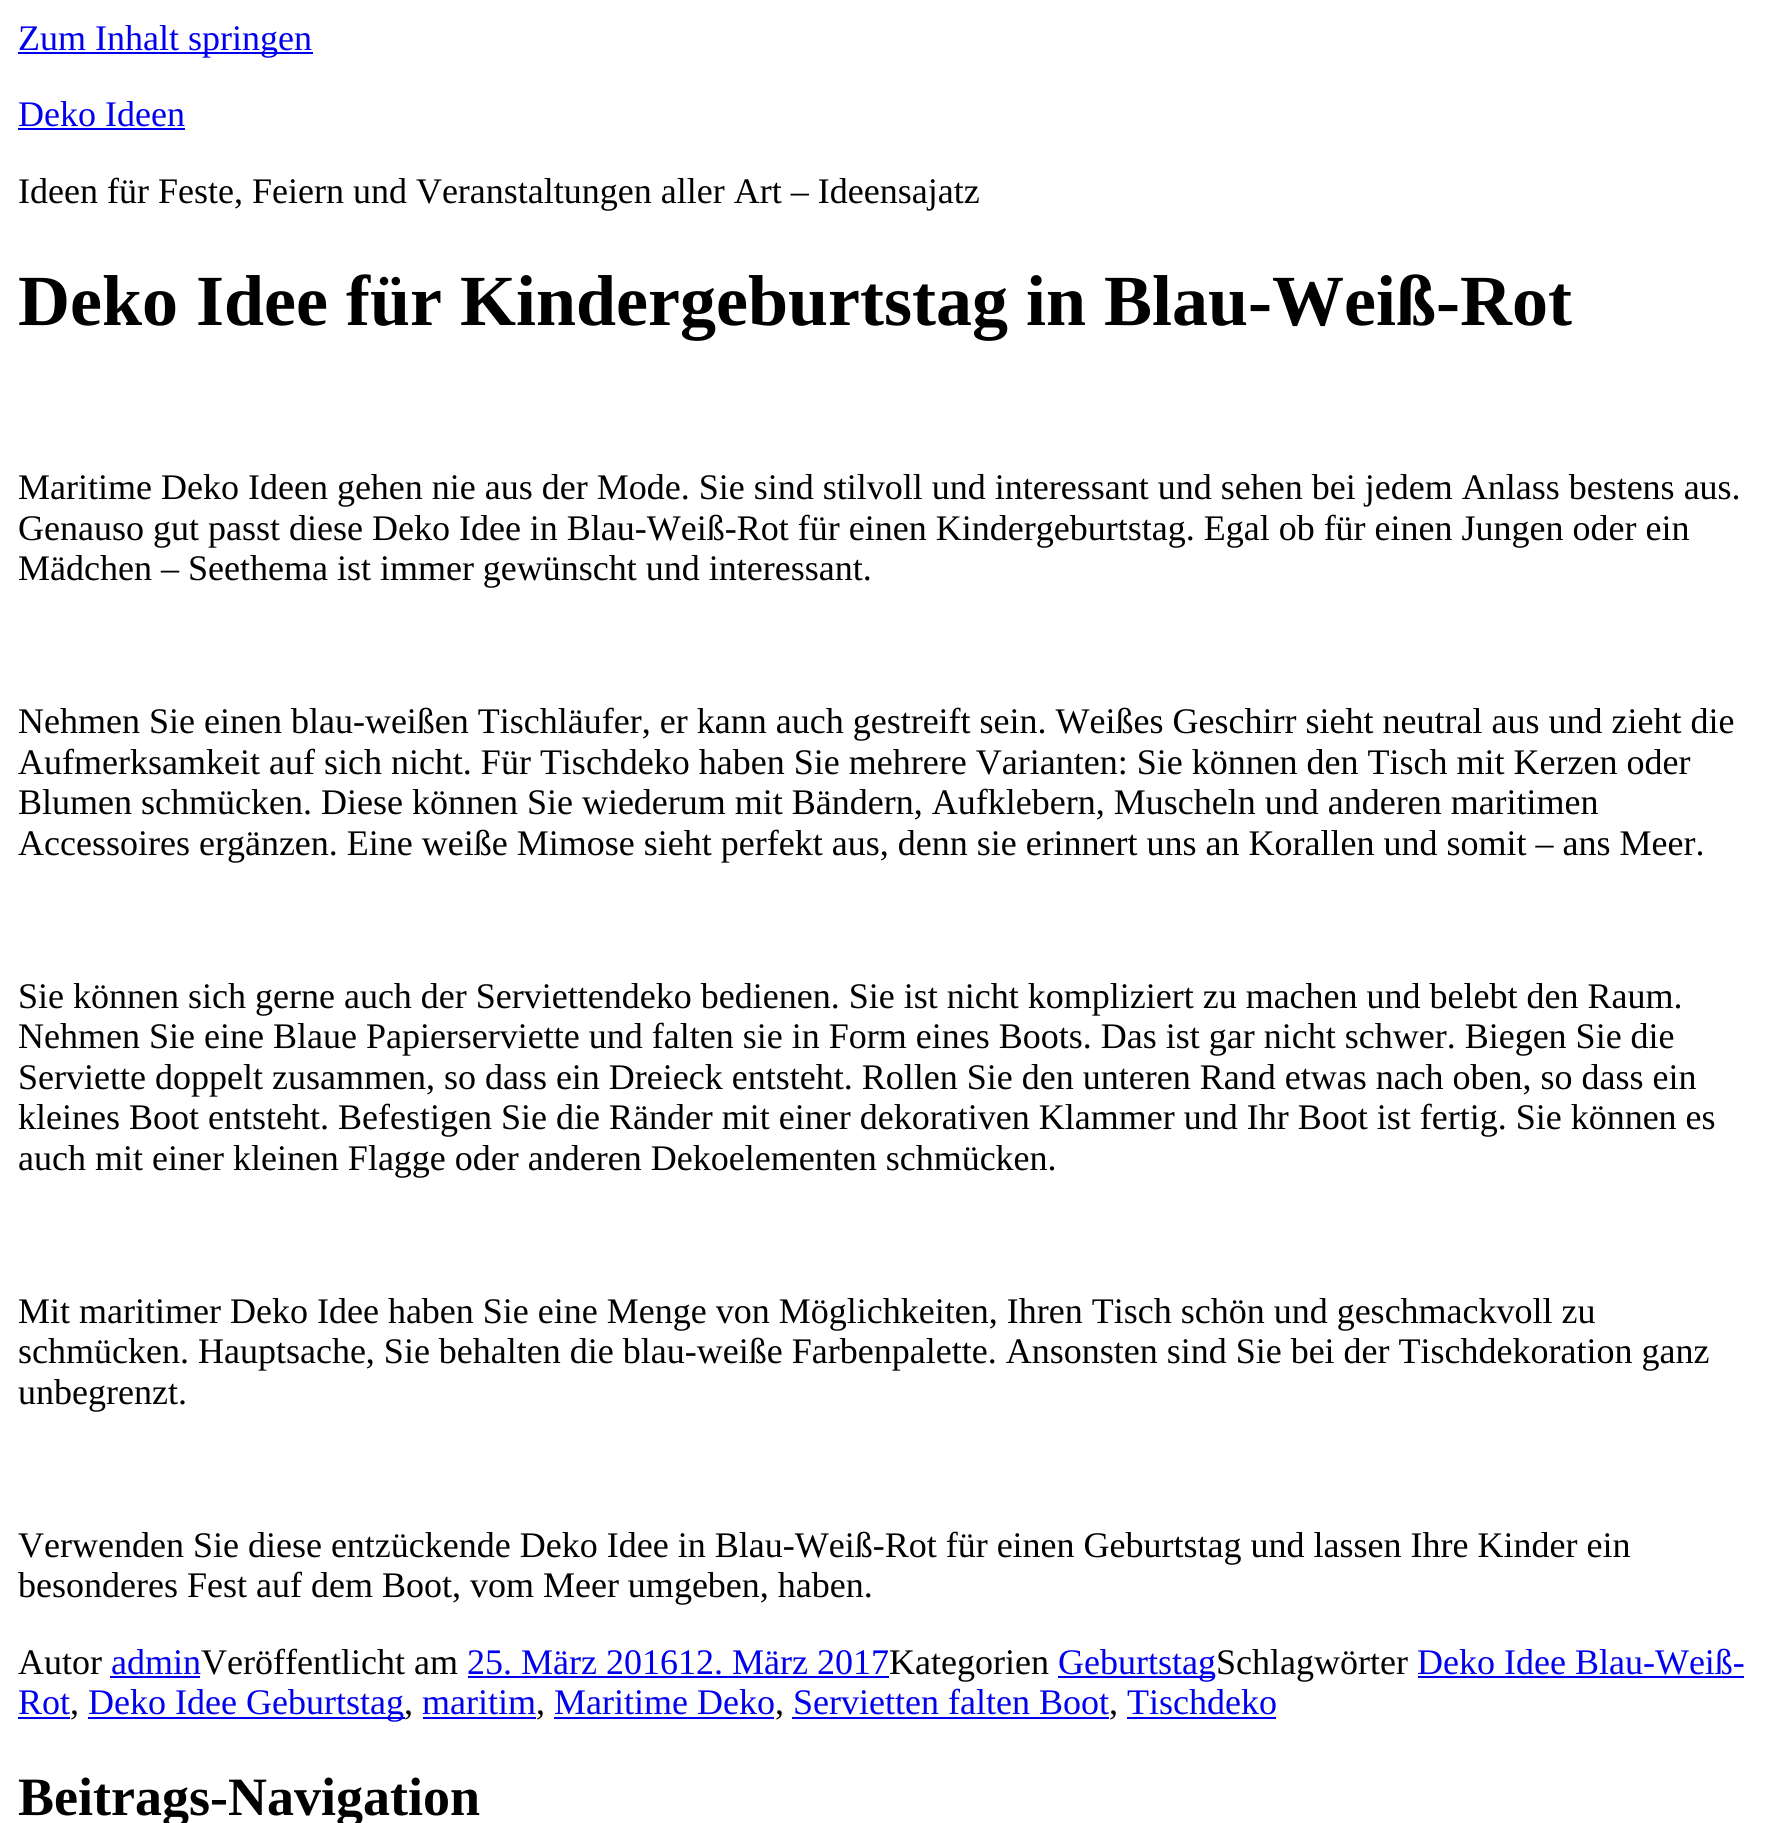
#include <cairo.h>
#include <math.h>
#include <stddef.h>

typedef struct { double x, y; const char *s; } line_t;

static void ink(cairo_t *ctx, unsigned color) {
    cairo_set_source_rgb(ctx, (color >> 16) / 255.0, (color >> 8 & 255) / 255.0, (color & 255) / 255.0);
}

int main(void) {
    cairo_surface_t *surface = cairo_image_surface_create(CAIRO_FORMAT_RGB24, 1770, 1823);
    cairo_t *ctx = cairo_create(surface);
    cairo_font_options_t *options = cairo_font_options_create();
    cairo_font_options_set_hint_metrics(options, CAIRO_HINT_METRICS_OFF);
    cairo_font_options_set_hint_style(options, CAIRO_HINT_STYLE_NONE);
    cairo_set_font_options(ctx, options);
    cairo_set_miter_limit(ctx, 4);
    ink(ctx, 0xFFFFFF);
    cairo_paint(ctx);
    ink(ctx, 0x0000EE);
    cairo_rectangle(ctx, 18, 52, 295, 2);
    cairo_fill(ctx);
    cairo_select_font_face(ctx, "Liberation Serif", CAIRO_FONT_SLANT_NORMAL, CAIRO_FONT_WEIGHT_NORMAL);
    cairo_set_font_size(ctx, 36);
    cairo_move_to(ctx, 18, 50);
    cairo_show_text(ctx, "Zum Inhalt springen");
    cairo_move_to(ctx, 18, 126);
    cairo_show_text(ctx, "Deko Ideen");
    cairo_rectangle(ctx, 18, 128, 167, 2);
    cairo_fill(ctx);
    ink(ctx, 0x000000);
    cairo_move_to(ctx, 18, 203);
    cairo_show_text(ctx, "Ideen für Feste, Feiern und Veranstaltungen aller Art – Ideensajatz");
    cairo_select_font_face(ctx, "Liberation Serif", CAIRO_FONT_SLANT_NORMAL, CAIRO_FONT_WEIGHT_BOLD);
    cairo_set_font_size(ctx, 72);
    cairo_move_to(ctx, 18, 325);
    cairo_show_text(ctx, "Deko Idee für Kindergeburtstag in Blau-Weiß-Rot");
    cairo_select_font_face(ctx, "Liberation Serif", CAIRO_FONT_SLANT_NORMAL, CAIRO_FONT_WEIGHT_NORMAL);
    cairo_set_font_size(ctx, 36);
    {
        static const line_t items[] = {
            {18, 499, "Maritime Deko Ideen gehen nie aus der Mode. Sie sind stilvoll und interessant und sehen bei jedem Anlass bestens aus."},
            {18, 540, "Genauso gut passt diese Deko Idee in Blau-Weiß-Rot für einen Kindergeburtstag. Egal ob für einen Jungen oder ein"},
            {18, 580, "Mädchen – Seethema ist immer gewünscht und interessant."},
            {18, 733, "Nehmen Sie einen blau-weißen Tischläufer, er kann auch gestreift sein. Weißes Geschirr sieht neutral aus und zieht die"},
            {18, 774, "Aufmerksamkeit auf sich nicht. Für Tischdeko haben Sie mehrere Varianten: Sie können den Tisch mit Kerzen oder"},
            {18, 814, "Blumen schmücken. Diese können Sie wiederum mit Bändern, Aufklebern, Muscheln und anderen maritimen"},
            {18, 855, "Accessoires ergänzen. Eine weiße Mimose sieht perfekt aus, denn sie erinnert uns an Korallen und somit – ans Meer."},
            {18, 1008, "Sie können sich gerne auch der Serviettendeko bedienen. Sie ist nicht kompliziert zu machen und belebt den Raum."},
            {18, 1048, "Nehmen Sie eine Blaue Papierserviette und falten sie in Form eines Boots. Das ist gar nicht schwer. Biegen Sie die"},
            {18, 1089, "Serviette doppelt zusammen, so dass ein Dreieck entsteht. Rollen Sie den unteren Rand etwas nach oben, so dass ein"},
            {18, 1129, "kleines Boot entsteht. Befestigen Sie die Ränder mit einer dekorativen Klammer und Ihr Boot ist fertig. Sie können es"},
            {18, 1170, "auch mit einer kleinen Flagge oder anderen Dekoelementen schmücken."},
            {18, 1323, "Mit maritimer Deko Idee haben Sie eine Menge von Möglichkeiten, Ihren Tisch schön und geschmackvoll zu"},
            {18, 1363, "schmücken. Hauptsache, Sie behalten die blau-weiße Farbenpalette. Ansonsten sind Sie bei der Tischdekoration ganz"},
            {18, 1404, "unbegrenzt."},
            {18, 1557, "Verwenden Sie diese entzückende Deko Idee in Blau-Weiß-Rot für einen Geburtstag und lassen Ihre Kinder ein"},
            {18, 1597, "besonderes Fest auf dem Boot, vom Meer umgeben, haben."},
            {18, 1674, "Autor"},
        };
        for (size_t i = 0; i < sizeof items / sizeof *items; i++) {
            cairo_move_to(ctx, items[i].x, items[i].y);
            cairo_show_text(ctx, items[i].s);
        }
    }
    ink(ctx, 0x0000EE);
    cairo_move_to(ctx, 111, 1674);
    cairo_show_text(ctx, "admin");
    cairo_rectangle(ctx, 110, 1676, 90, 2);
    cairo_fill(ctx);
    ink(ctx, 0x000000);
    cairo_move_to(ctx, 201, 1674);
    cairo_show_text(ctx, "Veröffentlicht am");
    ink(ctx, 0x0000EE);
    cairo_move_to(ctx, 467, 1674);
    cairo_show_text(ctx, "25. März 201612. März 2017");
    cairo_rectangle(ctx, 468, 1676, 421, 2);
    cairo_fill(ctx);
    ink(ctx, 0x000000);
    cairo_move_to(ctx, 889, 1674);
    cairo_show_text(ctx, "Kategorien");
    ink(ctx, 0x0000EE);
    cairo_rectangle(ctx, 1058, 1676, 157, 2);
    cairo_fill(ctx);
    cairo_move_to(ctx, 1058, 1674);
    cairo_show_text(ctx, "Geburtstag");
    ink(ctx, 0x000000);
    cairo_move_to(ctx, 1216, 1674);
    cairo_show_text(ctx, "Schlagwörter");
    ink(ctx, 0x0000EE);
    cairo_move_to(ctx, 1417, 1674);
    cairo_show_text(ctx, "Deko Idee Blau-Weiß-");
    cairo_rectangle(ctx, 1418, 1676, 326, 2);
    cairo_fill(ctx);
    cairo_move_to(ctx, 18, 1714);
    cairo_show_text(ctx, "Rot");
    ink(ctx, 0x000000);
    cairo_move_to(ctx, 70, 1714);
    cairo_show_text(ctx, ",");
    ink(ctx, 0x0000EE);
    cairo_rectangle(ctx, 18, 1717, 52, 2);
    cairo_fill(ctx);
    cairo_rectangle(ctx, 88, 1717, 317, 2);
    cairo_fill(ctx);
    cairo_move_to(ctx, 88, 1714);
    cairo_show_text(ctx, "Deko Idee Geburtstag");
    ink(ctx, 0x000000);
    cairo_move_to(ctx, 404, 1714);
    cairo_show_text(ctx, ",");
    ink(ctx, 0x0000EE);
    cairo_move_to(ctx, 422, 1714);
    cairo_show_text(ctx, "maritim");
    ink(ctx, 0x000000);
    cairo_move_to(ctx, 536, 1714);
    cairo_show_text(ctx, ",");
    ink(ctx, 0x0000EE);
    cairo_rectangle(ctx, 423, 1717, 113, 2);
    cairo_fill(ctx);
    cairo_move_to(ctx, 554, 1714);
    cairo_show_text(ctx, "Maritime Deko");
    ink(ctx, 0x000000);
    cairo_move_to(ctx, 775, 1714);
    cairo_show_text(ctx, ",");
    ink(ctx, 0x0000EE);
    cairo_rectangle(ctx, 554, 1717, 220, 2);
    cairo_fill(ctx);
    cairo_move_to(ctx, 793, 1714);
    cairo_show_text(ctx, "Servietten falten Boot");
    ink(ctx, 0x000000);
    cairo_move_to(ctx, 1109, 1714);
    cairo_show_text(ctx, ",");
    ink(ctx, 0x0000EE);
    cairo_rectangle(ctx, 792, 1717, 317, 2);
    cairo_fill(ctx);
    cairo_rectangle(ctx, 1127, 1717, 149, 2);
    cairo_fill(ctx);
    cairo_move_to(ctx, 1127, 1714);
    cairo_show_text(ctx, "Tischdeko");
    cairo_select_font_face(ctx, "Liberation Serif", CAIRO_FONT_SLANT_NORMAL, CAIRO_FONT_WEIGHT_BOLD);
    cairo_set_font_size(ctx, 54);
    ink(ctx, 0x000000);
    cairo_move_to(ctx, 18, 1815);
    cairo_show_text(ctx, "Beitrags-Navigation");
    cairo_surface_write_to_png(surface, "image.png");
    cairo_font_options_destroy(options);
    cairo_destroy(ctx);
    cairo_surface_destroy(surface);
    return 0;
}
